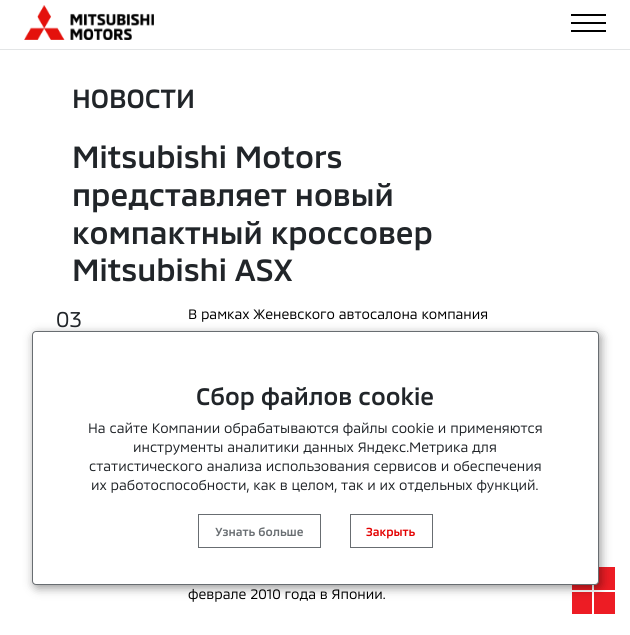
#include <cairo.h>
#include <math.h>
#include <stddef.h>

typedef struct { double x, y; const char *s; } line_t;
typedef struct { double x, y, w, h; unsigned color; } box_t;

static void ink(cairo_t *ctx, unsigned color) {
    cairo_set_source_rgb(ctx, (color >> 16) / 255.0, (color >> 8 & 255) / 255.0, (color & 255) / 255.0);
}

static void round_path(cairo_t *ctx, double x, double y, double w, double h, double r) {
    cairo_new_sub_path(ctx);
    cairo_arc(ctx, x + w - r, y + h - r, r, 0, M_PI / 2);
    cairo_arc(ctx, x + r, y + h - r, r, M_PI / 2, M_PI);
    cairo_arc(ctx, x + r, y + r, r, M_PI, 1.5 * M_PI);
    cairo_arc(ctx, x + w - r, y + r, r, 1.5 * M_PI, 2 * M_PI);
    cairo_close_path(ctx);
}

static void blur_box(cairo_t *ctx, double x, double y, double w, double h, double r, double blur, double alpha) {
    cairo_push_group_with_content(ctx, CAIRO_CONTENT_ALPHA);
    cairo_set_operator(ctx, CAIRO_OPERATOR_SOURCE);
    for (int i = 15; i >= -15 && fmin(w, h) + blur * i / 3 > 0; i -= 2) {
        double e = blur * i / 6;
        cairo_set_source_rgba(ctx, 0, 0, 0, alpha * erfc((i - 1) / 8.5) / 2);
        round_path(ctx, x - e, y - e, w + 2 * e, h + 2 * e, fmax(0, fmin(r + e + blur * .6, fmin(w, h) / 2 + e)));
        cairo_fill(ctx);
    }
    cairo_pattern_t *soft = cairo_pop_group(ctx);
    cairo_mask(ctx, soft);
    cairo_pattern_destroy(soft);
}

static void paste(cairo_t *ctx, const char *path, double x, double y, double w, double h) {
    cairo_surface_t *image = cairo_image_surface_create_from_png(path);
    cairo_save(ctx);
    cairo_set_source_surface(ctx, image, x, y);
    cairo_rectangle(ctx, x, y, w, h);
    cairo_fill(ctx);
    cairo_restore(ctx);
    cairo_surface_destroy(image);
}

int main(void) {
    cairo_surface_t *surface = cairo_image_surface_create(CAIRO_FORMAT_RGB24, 630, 635);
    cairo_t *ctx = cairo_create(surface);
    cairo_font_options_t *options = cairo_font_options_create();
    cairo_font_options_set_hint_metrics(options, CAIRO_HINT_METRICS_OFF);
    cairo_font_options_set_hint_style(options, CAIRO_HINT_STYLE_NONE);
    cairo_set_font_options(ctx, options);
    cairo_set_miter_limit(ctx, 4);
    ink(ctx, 0xFFFFFF);
    cairo_paint(ctx);
    ink(ctx, 0xE3E5E6);
    cairo_rectangle(ctx, 0, 49, 630, 1);
    cairo_fill(ctx);
    paste(ctx, "media/1.png", 24, 5, 130, 35);
    {
        static const box_t items[] = {
            {571, 14, 35, 2, 0x000000},
            {571, 22, 35, 2, 0x000000},
            {571, 30, 35, 2, 0x000000},
        };
        for (size_t i = 0; i < sizeof items / sizeof *items; i++) {
            ink(ctx, items[i].color);
            cairo_rectangle(ctx, items[i].x, items[i].y, items[i].w, items[i].h);
            cairo_fill(ctx);
        }
    }
    cairo_select_font_face(ctx, "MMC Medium", CAIRO_FONT_SLANT_NORMAL, CAIRO_FONT_WEIGHT_NORMAL);
    cairo_set_font_size(ctx, 27);
    ink(ctx, 0x212529);
    cairo_move_to(ctx, 72, 108);
    cairo_show_text(ctx, "НОВОСТИ");
    cairo_set_font_size(ctx, 31.5);
    {
        static const line_t items[] = {
            {72, 168, "Mitsubishi Motors"},
            {72, 206, "представляет новый"},
            {72, 244, "компактный кроссовер"},
            {72, 281, "Mitsubishi ASX"},
        };
        for (size_t i = 0; i < sizeof items / sizeof *items; i++) {
            cairo_move_to(ctx, items[i].x, items[i].y);
            cairo_show_text(ctx, items[i].s);
        }
    }
    cairo_select_font_face(ctx, "MMC", CAIRO_FONT_SLANT_NORMAL, CAIRO_FONT_WEIGHT_NORMAL);
    cairo_set_font_size(ctx, 22);
    cairo_move_to(ctx, 56, 327);
    cairo_show_text(ctx, "03");
    cairo_set_font_size(ctx, 14);
    ink(ctx, 0x000000);
    cairo_move_to(ctx, 188, 319);
    cairo_show_text(ctx, "В рамках Женевского автосалона компания");
    cairo_move_to(ctx, 188, 599);
    cairo_show_text(ctx, "феврале 2010 года в Японии.");
    {
        static const box_t items[] = {
            {572, 585, 20, 5, 0xED1C24},
            {594, 567, 21, 23, 0xED1C24},
            {572, 592, 20, 22, 0xED1C24},
            {594, 592, 21, 22, 0xED1C24},
        };
        for (size_t i = 0; i < sizeof items / sizeof *items; i++) {
            ink(ctx, items[i].color);
            cairo_rectangle(ctx, items[i].x, items[i].y, items[i].w, items[i].h);
            cairo_fill(ctx);
        }
    }
    ink(ctx, 0x000000);
    blur_box(ctx, 34, 334, 567, 254, 4, 5, 0.4);
    ink(ctx, 0xFFFFFF);
    round_path(ctx, 32.5, 331.5, 566, 253, 3.5);
    cairo_fill_preserve(ctx);
    ink(ctx, 0x686D71);
    cairo_set_line_width(ctx, 1);
    cairo_stroke(ctx);
    cairo_select_font_face(ctx, "MMC Medium", CAIRO_FONT_SLANT_NORMAL, CAIRO_FONT_WEIGHT_NORMAL);
    cairo_set_font_size(ctx, 24.5);
    ink(ctx, 0x212529);
    cairo_move_to(ctx, 196, 405);
    cairo_show_text(ctx, "Сбор файлов cookie");
    cairo_select_font_face(ctx, "MMC", CAIRO_FONT_SLANT_NORMAL, CAIRO_FONT_WEIGHT_NORMAL);
    cairo_set_font_size(ctx, 14);
    {
        static const line_t items[] = {
            {88, 433, "На сайте Компании обрабатываются файлы cookie и применяются"},
            {133, 452, "инструменты аналитики данных Яндекс.Метрика для"},
            {89, 471, "статистического анализа использования сервисов и обеспечения"},
            {91, 490, "их работоспособности, как в целом, так и их отдельных функций."},
        };
        for (size_t i = 0; i < sizeof items / sizeof *items; i++) {
            cairo_move_to(ctx, items[i].x, items[i].y);
            cairo_show_text(ctx, items[i].s);
        }
    }
    cairo_rectangle(ctx, 198.5, 514.5, 122, 33);
    ink(ctx, 0x686D71);
    cairo_stroke(ctx);
    cairo_select_font_face(ctx, "MMC Medium", CAIRO_FONT_SLANT_NORMAL, CAIRO_FONT_WEIGHT_NORMAL);
    cairo_set_font_size(ctx, 12);
    cairo_move_to(ctx, 215, 536);
    cairo_show_text(ctx, "Узнать больше");
    cairo_rectangle(ctx, 350.5, 514.5, 82, 33);
    cairo_stroke(ctx);
    ink(ctx, 0xE30000);
    cairo_move_to(ctx, 366, 536);
    cairo_show_text(ctx, "Закрыть");
    cairo_surface_write_to_png(surface, "image.png");
    cairo_font_options_destroy(options);
    cairo_destroy(ctx);
    cairo_surface_destroy(surface);
    return 0;
}
